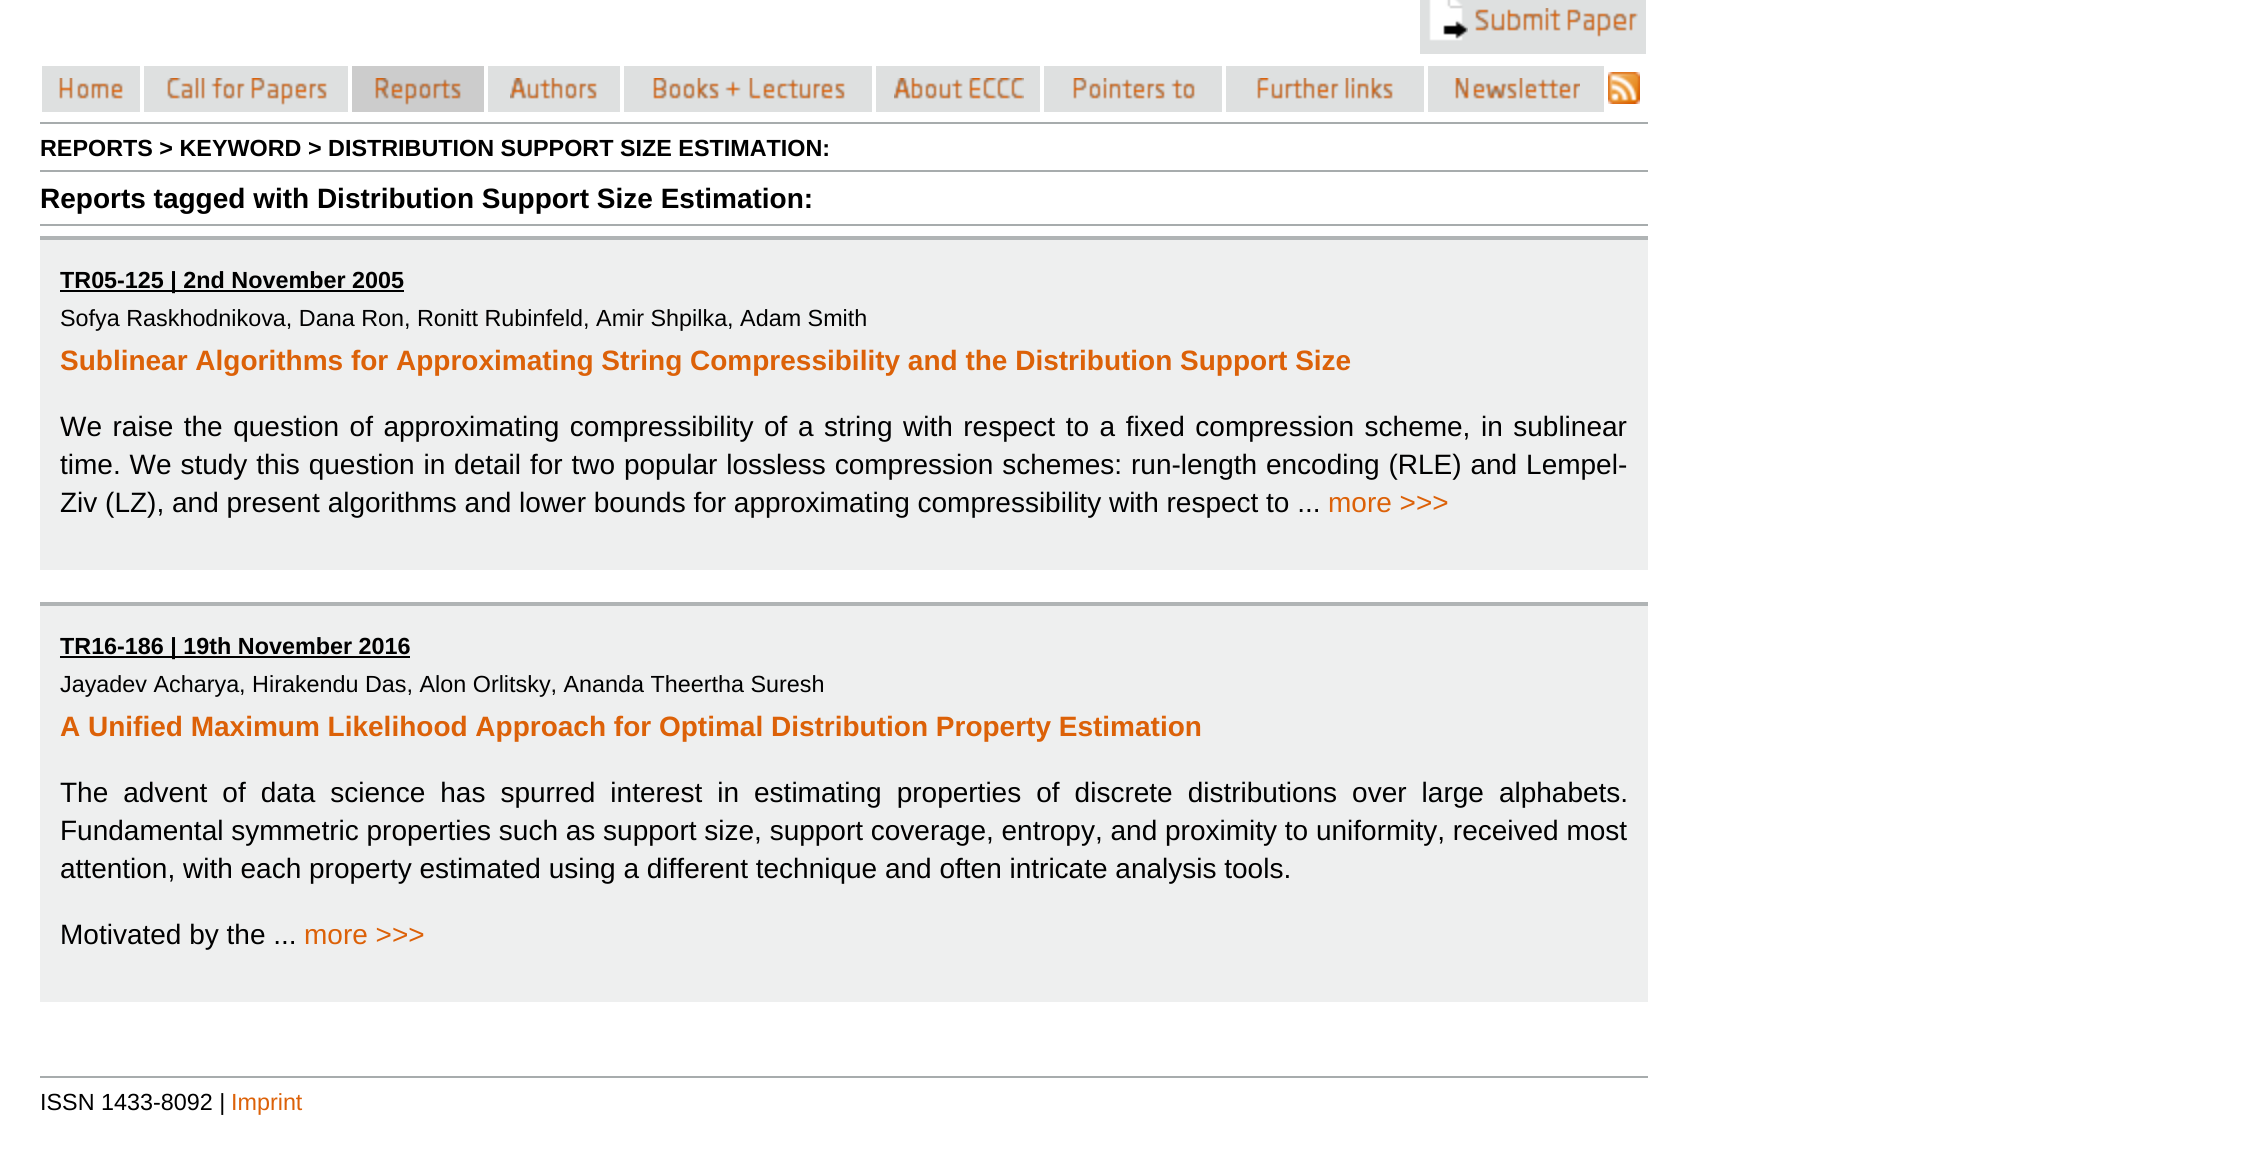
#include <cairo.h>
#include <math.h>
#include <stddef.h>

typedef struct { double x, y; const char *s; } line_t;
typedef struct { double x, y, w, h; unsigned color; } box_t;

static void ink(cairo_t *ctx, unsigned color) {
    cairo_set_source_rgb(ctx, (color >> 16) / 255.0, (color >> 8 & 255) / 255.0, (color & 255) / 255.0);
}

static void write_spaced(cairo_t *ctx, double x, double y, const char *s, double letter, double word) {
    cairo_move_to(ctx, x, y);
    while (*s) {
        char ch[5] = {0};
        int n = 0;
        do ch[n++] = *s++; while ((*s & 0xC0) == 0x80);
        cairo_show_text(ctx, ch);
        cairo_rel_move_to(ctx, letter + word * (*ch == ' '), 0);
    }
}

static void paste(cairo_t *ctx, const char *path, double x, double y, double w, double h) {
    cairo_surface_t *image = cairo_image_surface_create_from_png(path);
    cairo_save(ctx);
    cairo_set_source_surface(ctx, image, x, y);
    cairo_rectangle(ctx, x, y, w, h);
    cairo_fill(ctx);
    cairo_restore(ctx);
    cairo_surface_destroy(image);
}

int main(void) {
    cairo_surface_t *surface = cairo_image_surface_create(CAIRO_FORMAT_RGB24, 2248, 1153);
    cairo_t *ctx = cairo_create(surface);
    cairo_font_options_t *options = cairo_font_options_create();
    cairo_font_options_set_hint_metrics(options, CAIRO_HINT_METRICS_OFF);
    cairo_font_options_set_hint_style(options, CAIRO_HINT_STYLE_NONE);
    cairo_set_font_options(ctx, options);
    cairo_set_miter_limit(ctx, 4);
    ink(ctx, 0xFFFFFF);
    cairo_paint(ctx);
    ink(ctx, 0xDEE0E0);
    cairo_rectangle(ctx, 1420, 0, 226, 54);
    cairo_fill(ctx);
    paste(ctx, "media/1.png", 1429, 0, 39, 41);
    paste(ctx, "media/2.png", 1475, 8, 163, 29);
    cairo_rectangle(ctx, 42, 66, 98, 46);
    cairo_fill(ctx);
    paste(ctx, "media/3.png", 59, 78, 64, 21);
    cairo_rectangle(ctx, 144, 66, 204, 46);
    cairo_fill(ctx);
    paste(ctx, "media/4.png", 167, 78, 160, 27);
    ink(ctx, 0xCCCCCC);
    cairo_rectangle(ctx, 352, 66, 132, 46);
    cairo_fill(ctx);
    paste(ctx, "media/5.png", 375, 78, 86, 27);
    ink(ctx, 0xDEE0E0);
    cairo_rectangle(ctx, 488, 66, 132, 46);
    cairo_fill(ctx);
    paste(ctx, "media/6.png", 510, 78, 87, 21);
    cairo_rectangle(ctx, 624, 66, 248, 46);
    cairo_fill(ctx);
    paste(ctx, "media/7.png", 653, 78, 192, 21);
    cairo_rectangle(ctx, 876, 66, 164, 46);
    cairo_fill(ctx);
    paste(ctx, "media/8.png", 894, 78, 130, 21);
    cairo_rectangle(ctx, 1044, 66, 178, 46);
    cairo_fill(ctx);
    paste(ctx, "media/9.png", 1073, 78, 122, 21);
    cairo_rectangle(ctx, 1226, 66, 198, 46);
    cairo_fill(ctx);
    paste(ctx, "media/10.png", 1257, 78, 136, 21);
    cairo_rectangle(ctx, 1428, 66, 176, 46);
    cairo_fill(ctx);
    paste(ctx, "media/11.png", 1455, 78, 125, 21);
    paste(ctx, "media/12.png", 1608, 72, 32, 32);
    ink(ctx, 0xA7ACAD);
    cairo_rectangle(ctx, 40, 122, 1608, 2);
    cairo_fill(ctx);
    cairo_select_font_face(ctx, "Liberation Sans", CAIRO_FONT_SLANT_NORMAL, CAIRO_FONT_WEIGHT_BOLD);
    cairo_set_font_size(ctx, 23.35);
    ink(ctx, 0x000000);
    cairo_move_to(ctx, 40, 156);
    cairo_show_text(ctx, "REPORTS > KEYWORD > DISTRIBUTION SUPPORT SIZE ESTIMATION:");
    ink(ctx, 0xA7ACAD);
    cairo_rectangle(ctx, 40, 170, 1608, 2);
    cairo_fill(ctx);
    cairo_set_font_size(ctx, 28);
    ink(ctx, 0x000000);
    cairo_move_to(ctx, 40, 208);
    cairo_show_text(ctx, "Reports tagged with Distribution Support Size Estimation:");
    {
        static const box_t items[] = {
            {40, 224, 1608, 2, 0xA7ACAD},
            {40, 240, 1608, 330, 0xEEEFEF},
            {40, 236, 1608, 4, 0xB0B4B5},
            {60, 290, 344, 2, 0x000000},
        };
        for (size_t i = 0; i < sizeof items / sizeof *items; i++) {
            ink(ctx, items[i].color);
            cairo_rectangle(ctx, items[i].x, items[i].y, items[i].w, items[i].h);
            cairo_fill(ctx);
        }
    }
    cairo_set_font_size(ctx, 23.35);
    cairo_move_to(ctx, 60, 288);
    cairo_show_text(ctx, "TR05-125 | 2nd November 2005");
    cairo_select_font_face(ctx, "Liberation Sans", CAIRO_FONT_SLANT_NORMAL, CAIRO_FONT_WEIGHT_NORMAL);
    cairo_move_to(ctx, 60, 326);
    cairo_show_text(ctx, "Sofya Raskhodnikova, Dana Ron, Ronitt Rubinfeld, Amir Shpilka, Adam Smith");
    cairo_select_font_face(ctx, "Liberation Sans", CAIRO_FONT_SLANT_NORMAL, CAIRO_FONT_WEIGHT_BOLD);
    cairo_set_font_size(ctx, 28);
    ink(ctx, 0xDC6108);
    cairo_move_to(ctx, 60, 370);
    cairo_show_text(ctx, "Sublinear Algorithms for Approximating String Compressibility and the Distribution Support Size");
    cairo_select_font_face(ctx, "Liberation Sans", CAIRO_FONT_SLANT_NORMAL, CAIRO_FONT_WEIGHT_NORMAL);
    ink(ctx, 0x000000);
    write_spaced(ctx, 60, 436, "We raise the question of approximating compressibility of a string with respect to a fixed compression scheme, in sublinear", 0, 2.75);
    write_spaced(ctx, 60, 474, "time. We study this question in detail for two popular lossless compression schemes: run-length encoding (RLE) and Lempel-", 0, 1.1);
    cairo_move_to(ctx, 60, 512);
    cairo_show_text(ctx, "Ziv (LZ), and present algorithms and lower bounds for approximating compressibility with respect to ...");
    ink(ctx, 0xDC6108);
    cairo_move_to(ctx, 1328, 512);
    cairo_show_text(ctx, "more >>>");
    {
        static const box_t items[] = {
            {40, 606, 1608, 396, 0xEEEFEF},
            {40, 602, 1608, 4, 0xB0B4B5},
            {60, 656, 350, 2, 0x000000},
        };
        for (size_t i = 0; i < sizeof items / sizeof *items; i++) {
            ink(ctx, items[i].color);
            cairo_rectangle(ctx, items[i].x, items[i].y, items[i].w, items[i].h);
            cairo_fill(ctx);
        }
    }
    cairo_select_font_face(ctx, "Liberation Sans", CAIRO_FONT_SLANT_NORMAL, CAIRO_FONT_WEIGHT_BOLD);
    cairo_set_font_size(ctx, 23.35);
    cairo_move_to(ctx, 60, 654);
    cairo_show_text(ctx, "TR16-186 | 19th November 2016");
    cairo_select_font_face(ctx, "Liberation Sans", CAIRO_FONT_SLANT_NORMAL, CAIRO_FONT_WEIGHT_NORMAL);
    cairo_move_to(ctx, 60, 692);
    cairo_show_text(ctx, "Jayadev Acharya, Hirakendu Das, Alon Orlitsky, Ananda Theertha Suresh");
    cairo_select_font_face(ctx, "Liberation Sans", CAIRO_FONT_SLANT_NORMAL, CAIRO_FONT_WEIGHT_BOLD);
    cairo_set_font_size(ctx, 28);
    ink(ctx, 0xDC6108);
    cairo_move_to(ctx, 60, 736);
    cairo_show_text(ctx, "A Unified Maximum Likelihood Approach for Optimal Distribution Property Estimation");
    cairo_select_font_face(ctx, "Liberation Sans", CAIRO_FONT_SLANT_NORMAL, CAIRO_FONT_WEIGHT_NORMAL);
    ink(ctx, 0x000000);
    write_spaced(ctx, 60, 802, "The advent of data science has spurred interest in estimating properties of discrete distributions over large alphabets.", 0, 7.25);
    {
        static const line_t items[] = {
            {60, 840, "Fundamental symmetric properties such as support size, support coverage, entropy, and proximity to uniformity, received most"},
            {60, 878, "attention, with each property estimated using a different technique and often intricate analysis tools."},
            {60, 944, "Motivated by the ..."},
        };
        for (size_t i = 0; i < sizeof items / sizeof *items; i++) {
            cairo_move_to(ctx, items[i].x, items[i].y);
            cairo_show_text(ctx, items[i].s);
        }
    }
    ink(ctx, 0xDC6108);
    cairo_move_to(ctx, 304, 944);
    cairo_show_text(ctx, "more >>>");
    ink(ctx, 0xA7ACAD);
    cairo_rectangle(ctx, 40, 1076, 1608, 2);
    cairo_fill(ctx);
    cairo_set_font_size(ctx, 23.35);
    ink(ctx, 0x000000);
    cairo_move_to(ctx, 40, 1110);
    cairo_show_text(ctx, "ISSN 1433-8092 |");
    ink(ctx, 0xDC6108);
    cairo_move_to(ctx, 231, 1110);
    cairo_show_text(ctx, "Imprint");
    cairo_surface_write_to_png(surface, "image.png");
    cairo_font_options_destroy(options);
    cairo_destroy(ctx);
    cairo_surface_destroy(surface);
    return 0;
}
